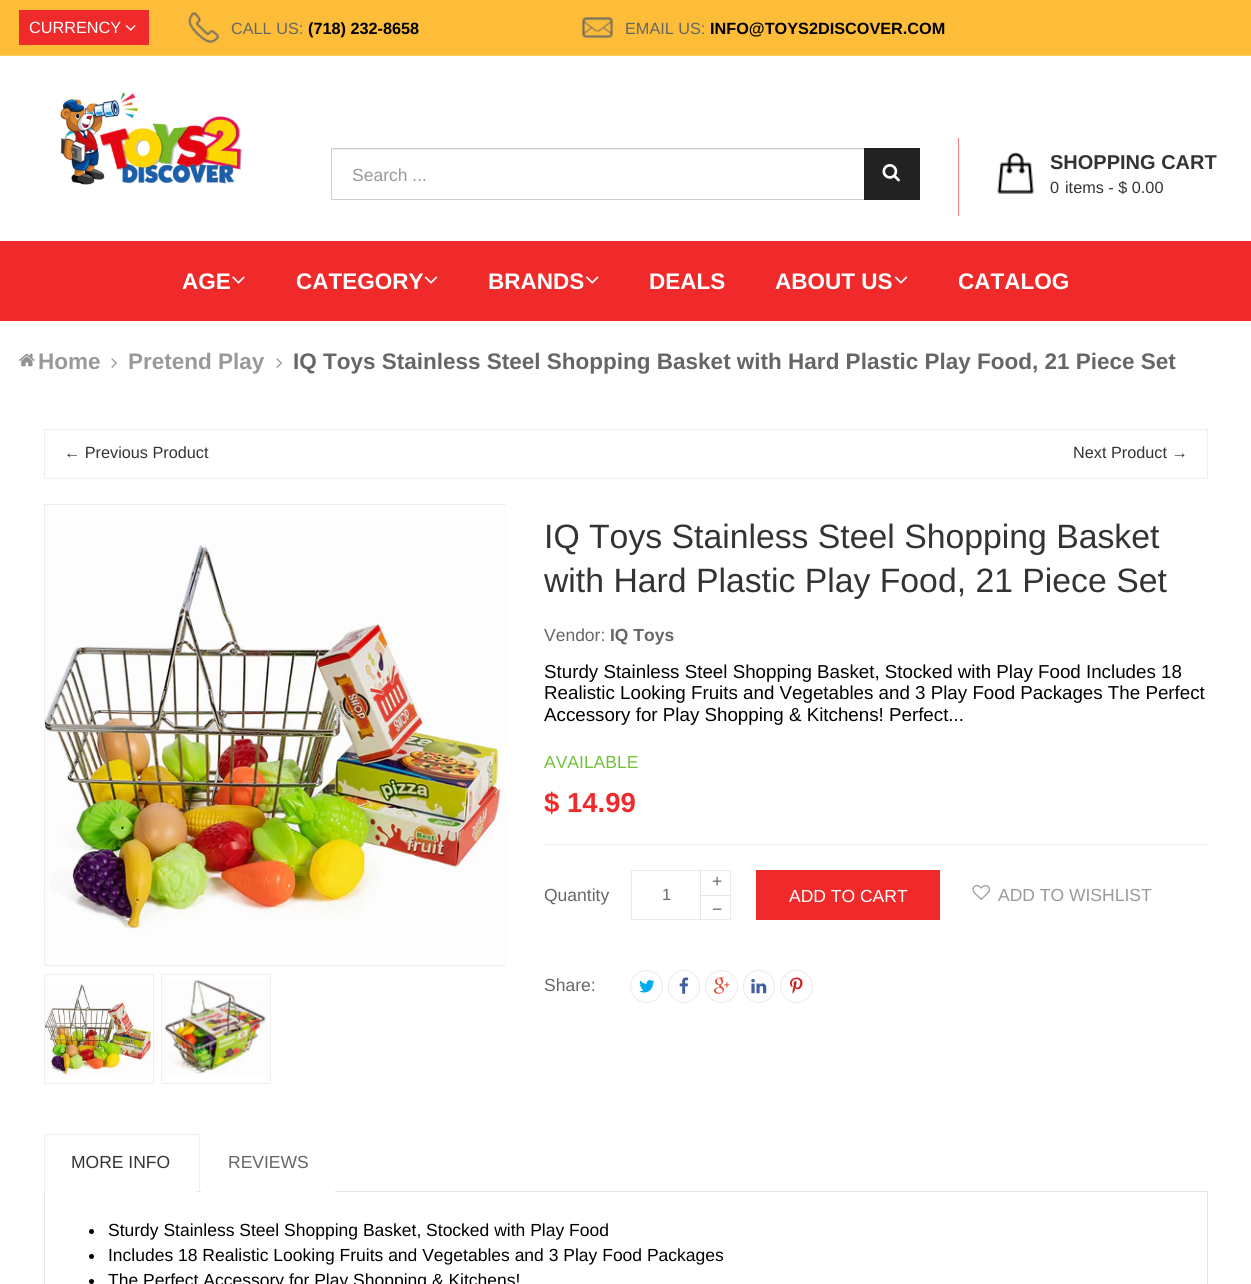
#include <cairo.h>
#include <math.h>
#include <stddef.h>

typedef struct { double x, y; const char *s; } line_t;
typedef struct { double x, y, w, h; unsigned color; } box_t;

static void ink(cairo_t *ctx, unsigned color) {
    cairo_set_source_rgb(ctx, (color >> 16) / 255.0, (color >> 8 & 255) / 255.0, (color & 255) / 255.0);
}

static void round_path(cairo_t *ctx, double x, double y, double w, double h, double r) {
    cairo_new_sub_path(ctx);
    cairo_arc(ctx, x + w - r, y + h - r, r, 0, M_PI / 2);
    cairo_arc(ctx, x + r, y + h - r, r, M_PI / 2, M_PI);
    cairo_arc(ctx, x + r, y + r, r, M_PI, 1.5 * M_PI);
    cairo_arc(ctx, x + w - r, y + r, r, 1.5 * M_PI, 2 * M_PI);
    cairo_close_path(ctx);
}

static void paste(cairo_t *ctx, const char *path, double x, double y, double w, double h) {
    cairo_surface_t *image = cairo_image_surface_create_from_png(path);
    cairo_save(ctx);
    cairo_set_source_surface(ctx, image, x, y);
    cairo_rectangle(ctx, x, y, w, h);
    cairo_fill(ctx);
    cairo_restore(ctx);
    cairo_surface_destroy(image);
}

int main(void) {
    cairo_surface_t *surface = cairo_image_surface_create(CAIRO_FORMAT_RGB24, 1251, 1284);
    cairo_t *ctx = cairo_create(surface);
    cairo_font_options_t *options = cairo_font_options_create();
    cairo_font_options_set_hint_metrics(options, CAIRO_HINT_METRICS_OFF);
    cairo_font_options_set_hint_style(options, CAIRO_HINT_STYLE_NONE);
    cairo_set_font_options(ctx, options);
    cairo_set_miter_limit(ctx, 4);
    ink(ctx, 0xFFFFFF);
    cairo_paint(ctx);
    {
        static const box_t items[] = {
            {0, 0, 1251, 55, 0xFDBD38},
            {0, 55, 1251, 1, 0xFDCA60},
            {19, 10, 130, 35, 0xF02A2A},
        };
        for (size_t i = 0; i < sizeof items / sizeof *items; i++) {
            ink(ctx, items[i].color);
            cairo_rectangle(ctx, items[i].x, items[i].y, items[i].w, items[i].h);
            cairo_fill(ctx);
        }
    }
    cairo_select_font_face(ctx, "Liberation Sans", CAIRO_FONT_SLANT_NORMAL, CAIRO_FONT_WEIGHT_NORMAL);
    cairo_set_font_size(ctx, 16.25);
    ink(ctx, 0xFFFFFF);
    cairo_move_to(ctx, 29, 33);
    cairo_show_text(ctx, "CURRENCY");
    paste(ctx, "media/1.png", 125, 25, 11, 6);
    paste(ctx, "media/2.png", 188, 12, 31, 31);
    ink(ctx, 0x666666);
    cairo_move_to(ctx, 231, 34);
    cairo_show_text(ctx, "CALL US:");
    cairo_select_font_face(ctx, "Liberation Sans", CAIRO_FONT_SLANT_NORMAL, CAIRO_FONT_WEIGHT_BOLD);
    ink(ctx, 0x000000);
    cairo_move_to(ctx, 308, 34);
    cairo_show_text(ctx, "(718) 232-8658");
    paste(ctx, "media/3.png", 582, 17, 31, 21);
    cairo_select_font_face(ctx, "Liberation Sans", CAIRO_FONT_SLANT_NORMAL, CAIRO_FONT_WEIGHT_NORMAL);
    ink(ctx, 0x666666);
    cairo_move_to(ctx, 625, 34);
    cairo_show_text(ctx, "EMAIL US:");
    cairo_select_font_face(ctx, "Liberation Sans", CAIRO_FONT_SLANT_NORMAL, CAIRO_FONT_WEIGHT_BOLD);
    ink(ctx, 0x000000);
    cairo_move_to(ctx, 710, 34);
    cairo_show_text(ctx, "INFO@TOYS2DISCOVER.COM");
    paste(ctx, "media/4.png", 60, 91, 183, 94);
    ink(ctx, 0xECECEC);
    cairo_rectangle(ctx, 333, 149, 531, 1);
    cairo_fill(ctx);
    cairo_rectangle(ctx, 331.5, 148.5, 588, 51);
    ink(ctx, 0xCFCFCF);
    cairo_set_line_width(ctx, 1);
    cairo_stroke(ctx);
    cairo_select_font_face(ctx, "Liberation Sans", CAIRO_FONT_SLANT_NORMAL, CAIRO_FONT_WEIGHT_NORMAL);
    cairo_set_font_size(ctx, 17.5);
    ink(ctx, 0x999999);
    cairo_move_to(ctx, 352, 181);
    cairo_show_text(ctx, "Search ...");
    ink(ctx, 0x222222);
    cairo_rectangle(ctx, 864, 148, 56, 52);
    cairo_fill(ctx);
    paste(ctx, "media/5.png", 882, 164, 18, 18);
    ink(ctx, 0xF67F7F);
    cairo_rectangle(ctx, 958, 138, 1, 78);
    cairo_fill(ctx);
    paste(ctx, "media/6.png", 997, 152, 37, 42);
    cairo_select_font_face(ctx, "Liberation Sans", CAIRO_FONT_SLANT_NORMAL, CAIRO_FONT_WEIGHT_BOLD);
    cairo_set_font_size(ctx, 20);
    ink(ctx, 0x333333);
    cairo_move_to(ctx, 1050, 169);
    cairo_show_text(ctx, "SHOPPING CART");
    cairo_select_font_face(ctx, "Liberation Sans", CAIRO_FONT_SLANT_NORMAL, CAIRO_FONT_WEIGHT_NORMAL);
    cairo_set_font_size(ctx, 16.25);
    cairo_move_to(ctx, 1050, 193);
    cairo_show_text(ctx, "0");
    cairo_move_to(ctx, 1065, 193);
    cairo_show_text(ctx, "items - $ 0.00");
    ink(ctx, 0xF02A2A);
    cairo_rectangle(ctx, 0, 241, 1251, 80);
    cairo_fill(ctx);
    cairo_select_font_face(ctx, "Liberation Sans", CAIRO_FONT_SLANT_NORMAL, CAIRO_FONT_WEIGHT_BOLD);
    cairo_set_font_size(ctx, 22.5);
    ink(ctx, 0xFFFFFF);
    cairo_move_to(ctx, 182, 289);
    cairo_show_text(ctx, "AGE");
    paste(ctx, "media/7.png", 232, 276, 13, 8);
    cairo_move_to(ctx, 296, 289);
    cairo_show_text(ctx, "CATEGORY");
    paste(ctx, "media/8.png", 424, 276, 14, 8);
    cairo_move_to(ctx, 488, 289);
    cairo_show_text(ctx, "BRANDS");
    paste(ctx, "media/9.png", 586, 276, 13, 8);
    cairo_move_to(ctx, 649, 289);
    cairo_show_text(ctx, "DEALS");
    cairo_move_to(ctx, 775, 289);
    cairo_show_text(ctx, "ABOUT US");
    paste(ctx, "media/8.png", 894, 276, 14, 8);
    cairo_move_to(ctx, 958, 289);
    cairo_show_text(ctx, "CATALOG");
    paste(ctx, "media/10.png", 19, 353, 16, 14);
    ink(ctx, 0x999999);
    cairo_move_to(ctx, 38, 369);
    cairo_show_text(ctx, "Home");
    paste(ctx, "media/11.png", 111, 358, 6, 10);
    cairo_move_to(ctx, 128, 369);
    cairo_show_text(ctx, "Pretend Play");
    paste(ctx, "media/11.png", 276, 358, 6, 10);
    ink(ctx, 0x666666);
    cairo_move_to(ctx, 293, 369);
    cairo_show_text(ctx, "IQ Toys Stainless Steel Shopping Basket with Hard Plastic Play Food, 21 Piece Set");
    cairo_rectangle(ctx, 44.5, 429.5, 1163, 49);
    ink(ctx, 0xEEEEEE);
    cairo_stroke(ctx);
    cairo_select_font_face(ctx, "Liberation Sans", CAIRO_FONT_SLANT_NORMAL, CAIRO_FONT_WEIGHT_NORMAL);
    cairo_set_font_size(ctx, 16.25);
    ink(ctx, 0x333333);
    cairo_move_to(ctx, 64, 458);
    cairo_show_text(ctx, "← Previous Product");
    cairo_move_to(ctx, 1073, 458);
    cairo_show_text(ctx, "Next Product →");
    cairo_rectangle(ctx, 44.5, 504.5, 461, 461);
    ink(ctx, 0xEEEEEE);
    cairo_stroke(ctx);
    paste(ctx, "media/12.png", 45, 505, 461, 460);
    cairo_rectangle(ctx, 44.5, 974.5, 109, 109);
    cairo_stroke(ctx);
    paste(ctx, "media/13.png", 45, 983, 108, 95);
    cairo_rectangle(ctx, 161.5, 974.5, 109, 109);
    cairo_stroke(ctx);
    paste(ctx, "media/14.png", 162, 979, 105, 96);
    cairo_set_font_size(ctx, 33.75);
    ink(ctx, 0x333333);
    cairo_move_to(ctx, 544, 548);
    cairo_show_text(ctx, "IQ Toys Stainless Steel Shopping Basket");
    cairo_move_to(ctx, 544, 592);
    cairo_show_text(ctx, "with Hard Plastic Play Food, 21 Piece Set");
    cairo_set_font_size(ctx, 17.5);
    ink(ctx, 0x666666);
    cairo_move_to(ctx, 544, 641);
    cairo_show_text(ctx, "Vendor:");
    cairo_select_font_face(ctx, "Liberation Sans", CAIRO_FONT_SLANT_NORMAL, CAIRO_FONT_WEIGHT_BOLD);
    cairo_move_to(ctx, 610, 641);
    cairo_show_text(ctx, "IQ Toys");
    cairo_select_font_face(ctx, "Liberation Sans", CAIRO_FONT_SLANT_NORMAL, CAIRO_FONT_WEIGHT_NORMAL);
    cairo_set_font_size(ctx, 18.75);
    ink(ctx, 0x000000);
    {
        static const line_t items[] = {
            {544, 678, "Sturdy Stainless Steel Shopping Basket, Stocked with Play Food Includes 18"},
            {544, 699, "Realistic Looking Fruits and Vegetables and 3 Play Food Packages The Perfect"},
            {544, 721, "Accessory for Play Shopping & Kitchens! Perfect..."},
        };
        for (size_t i = 0; i < sizeof items / sizeof *items; i++) {
            cairo_move_to(ctx, items[i].x, items[i].y);
            cairo_show_text(ctx, items[i].s);
        }
    }
    cairo_set_font_size(ctx, 17.5);
    ink(ctx, 0x72C13D);
    cairo_move_to(ctx, 544, 768);
    cairo_show_text(ctx, "AVAILABLE");
    cairo_select_font_face(ctx, "Liberation Sans", CAIRO_FONT_SLANT_NORMAL, CAIRO_FONT_WEIGHT_BOLD);
    cairo_set_font_size(ctx, 27.5);
    ink(ctx, 0xF02A2A);
    cairo_move_to(ctx, 544, 812);
    cairo_show_text(ctx, "$ 14.99");
    ink(ctx, 0xEEEEEE);
    cairo_rectangle(ctx, 544, 844, 664, 1);
    cairo_fill(ctx);
    cairo_select_font_face(ctx, "Liberation Sans", CAIRO_FONT_SLANT_NORMAL, CAIRO_FONT_WEIGHT_NORMAL);
    cairo_set_font_size(ctx, 17.5);
    ink(ctx, 0x666666);
    cairo_move_to(ctx, 544, 901);
    cairo_show_text(ctx, "Quantity");
    cairo_rectangle(ctx, 631.5, 870.5, 99, 49);
    ink(ctx, 0xEBEBEB);
    cairo_stroke(ctx);
    ink(ctx, 0xE5E5E5);
    cairo_rectangle(ctx, 700, 869, 1, 26);
    cairo_fill(ctx);
    ink(ctx, 0x666666);
    cairo_move_to(ctx, 712, 887);
    cairo_show_text(ctx, "+");
    cairo_set_font_size(ctx, 16.25);
    cairo_move_to(ctx, 662, 900);
    cairo_show_text(ctx, "1");
    ink(ctx, 0xE5E5E5);
    cairo_rectangle(ctx, 700, 895, 31, 1);
    cairo_fill(ctx);
    cairo_rectangle(ctx, 700, 895, 1, 26);
    cairo_fill(ctx);
    cairo_set_font_size(ctx, 17.5);
    ink(ctx, 0x666666);
    cairo_move_to(ctx, 712, 915);
    cairo_show_text(ctx, "−");
    ink(ctx, 0xF02A2A);
    cairo_rectangle(ctx, 756, 870, 184, 50);
    cairo_fill(ctx);
    ink(ctx, 0xFFFFFF);
    cairo_move_to(ctx, 789, 902);
    cairo_show_text(ctx, "ADD TO CART");
    paste(ctx, "media/15.png", 972, 885, 18, 15);
    ink(ctx, 0x999999);
    cairo_move_to(ctx, 998, 901);
    cairo_show_text(ctx, "ADD TO WISHLIST");
    ink(ctx, 0x666666);
    cairo_move_to(ctx, 544, 991);
    cairo_show_text(ctx, "Share:");
    cairo_new_path(ctx);
    cairo_arc(ctx, 646.5, 986.5, 16, 0, 2 * M_PI);
    ink(ctx, 0xEBEBEB);
    cairo_stroke(ctx);
    paste(ctx, "media/16.png", 639, 980, 16, 13);
    round_path(ctx, 668.5, 970.5, 31, 32, 15.5);
    cairo_stroke(ctx);
    paste(ctx, "media/17.png", 679, 977, 10, 17);
    cairo_arc(ctx, 721.5, 986.5, 16, 0, 2 * M_PI);
    cairo_stroke(ctx);
    paste(ctx, "media/18.png", 714, 977, 16, 17);
    round_path(ctx, 743.5, 970.5, 31, 32, 15.5);
    cairo_stroke(ctx);
    paste(ctx, "media/19.png", 751, 979, 16, 15);
    cairo_arc(ctx, 796.5, 986.5, 16, 0, 2 * M_PI);
    cairo_stroke(ctx);
    paste(ctx, "media/20.png", 790, 977, 13, 17);
    ink(ctx, 0xEEEEEE);
    cairo_rectangle(ctx, 44, 1134, 156, 1);
    cairo_fill(ctx);
    cairo_rectangle(ctx, 44.5, 1191.5, 1163, 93);
    ink(ctx, 0xE4E4E4);
    cairo_stroke(ctx);
    ink(ctx, 0xEEEEEE);
    cairo_new_path(ctx);
    cairo_move_to(ctx, 200, 1134);
    cairo_line_to(ctx, 200, 1194);
    cairo_line_to(ctx, 199, 1192);
    cairo_line_to(ctx, 199, 1135);
    cairo_close_path(ctx);
    cairo_fill(ctx);
    cairo_new_path(ctx);
    cairo_move_to(ctx, 44, 1194);
    cairo_line_to(ctx, 44, 1134);
    cairo_line_to(ctx, 45, 1135);
    cairo_line_to(ctx, 45, 1192);
    cairo_close_path(ctx);
    cairo_fill(ctx);
    ink(ctx, 0xFFFFFF);
    cairo_rectangle(ctx, 45, 1191, 151, 1);
    cairo_fill(ctx);
    ink(ctx, 0x333333);
    cairo_move_to(ctx, 71, 1168);
    cairo_show_text(ctx, "MORE INFO");
    ink(ctx, 0xFFFFFF);
    cairo_rectangle(ctx, 201, 1191, 134, 1);
    cairo_fill(ctx);
    ink(ctx, 0x666666);
    cairo_move_to(ctx, 228, 1168);
    cairo_show_text(ctx, "REVIEWS");
    ink(ctx, 0x000000);
    cairo_new_path(ctx);
    cairo_arc(ctx, 91.5, 1231.5, 2.5, 0, 2 * M_PI);
    cairo_fill(ctx);
    cairo_move_to(ctx, 108, 1236);
    cairo_show_text(ctx, "Sturdy Stainless Steel Shopping Basket, Stocked with Play Food");
    cairo_new_path(ctx);
    cairo_arc(ctx, 91.5, 1256.5, 2.5, 0, 2 * M_PI);
    cairo_fill(ctx);
    cairo_move_to(ctx, 108, 1261);
    cairo_show_text(ctx, "Includes 18 Realistic Looking Fruits and Vegetables and 3 Play Food Packages");
    cairo_new_path(ctx);
    cairo_arc(ctx, 91.5, 1281.5, 2.5, 0, 2 * M_PI);
    cairo_fill(ctx);
    cairo_move_to(ctx, 108, 1286);
    cairo_show_text(ctx, "The Perfect Accessory for Play Shopping & Kitchens!");
    cairo_surface_write_to_png(surface, "image.png");
    cairo_font_options_destroy(options);
    cairo_destroy(ctx);
    cairo_surface_destroy(surface);
    return 0;
}
